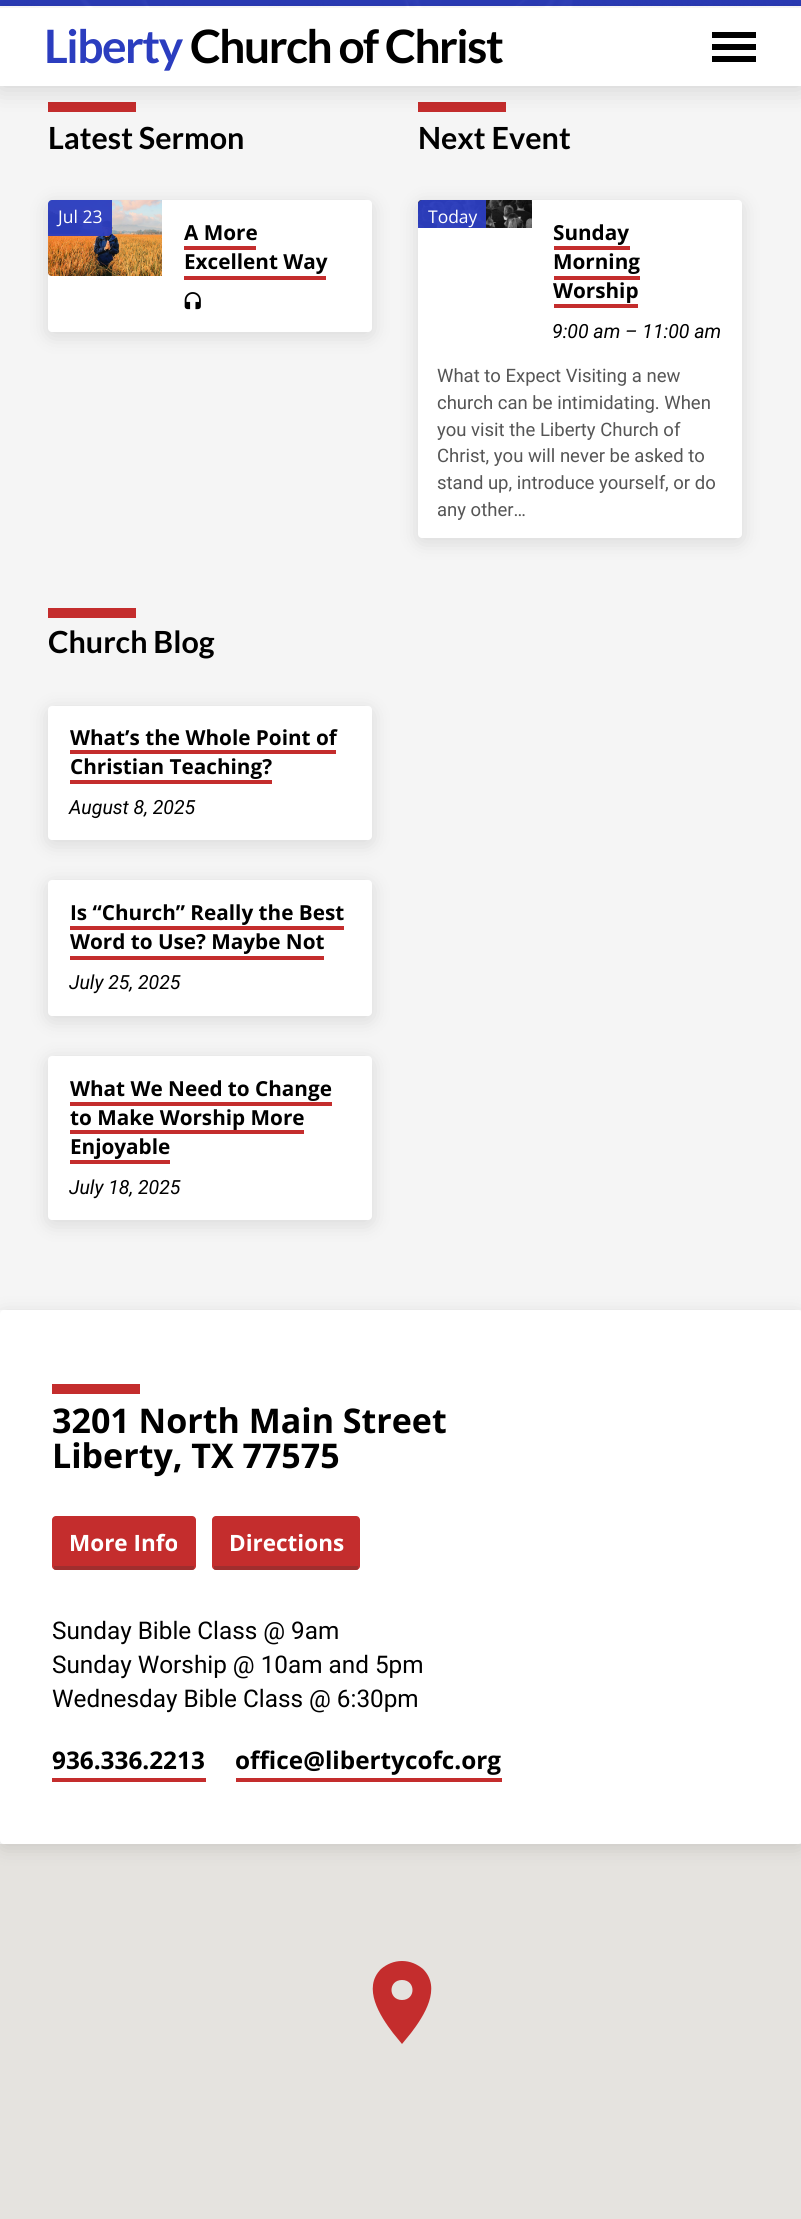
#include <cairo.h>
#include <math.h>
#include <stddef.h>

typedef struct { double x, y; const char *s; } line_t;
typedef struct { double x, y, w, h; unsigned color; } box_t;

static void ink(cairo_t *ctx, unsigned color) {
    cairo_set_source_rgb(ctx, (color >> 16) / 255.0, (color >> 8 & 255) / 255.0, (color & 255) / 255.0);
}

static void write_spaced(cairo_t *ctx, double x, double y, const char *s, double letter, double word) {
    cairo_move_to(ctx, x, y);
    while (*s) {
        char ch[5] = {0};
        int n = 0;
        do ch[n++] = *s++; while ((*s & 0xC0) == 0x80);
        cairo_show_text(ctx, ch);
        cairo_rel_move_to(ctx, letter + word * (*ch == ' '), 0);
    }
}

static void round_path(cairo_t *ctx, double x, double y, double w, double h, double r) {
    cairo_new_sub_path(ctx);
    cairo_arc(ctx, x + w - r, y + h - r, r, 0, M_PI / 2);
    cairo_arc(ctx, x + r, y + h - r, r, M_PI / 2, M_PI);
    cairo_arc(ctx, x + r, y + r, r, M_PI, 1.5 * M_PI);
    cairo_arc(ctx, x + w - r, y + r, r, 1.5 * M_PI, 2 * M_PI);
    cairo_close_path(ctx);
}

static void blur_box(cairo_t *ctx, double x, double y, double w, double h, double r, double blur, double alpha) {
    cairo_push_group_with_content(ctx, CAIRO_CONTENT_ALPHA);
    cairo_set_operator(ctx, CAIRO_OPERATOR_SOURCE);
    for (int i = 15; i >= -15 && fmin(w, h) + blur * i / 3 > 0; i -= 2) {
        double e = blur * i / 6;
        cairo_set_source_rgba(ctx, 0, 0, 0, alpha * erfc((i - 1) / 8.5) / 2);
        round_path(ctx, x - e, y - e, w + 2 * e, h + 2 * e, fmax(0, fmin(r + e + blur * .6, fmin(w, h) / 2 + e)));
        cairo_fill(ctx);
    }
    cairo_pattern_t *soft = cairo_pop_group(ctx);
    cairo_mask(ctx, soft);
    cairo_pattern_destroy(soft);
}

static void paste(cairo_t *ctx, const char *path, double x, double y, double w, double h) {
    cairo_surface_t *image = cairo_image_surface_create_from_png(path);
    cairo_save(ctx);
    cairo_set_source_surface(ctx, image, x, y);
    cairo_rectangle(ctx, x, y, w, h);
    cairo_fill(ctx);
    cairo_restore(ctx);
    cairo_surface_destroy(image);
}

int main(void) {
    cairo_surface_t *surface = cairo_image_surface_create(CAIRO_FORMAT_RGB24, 801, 2219);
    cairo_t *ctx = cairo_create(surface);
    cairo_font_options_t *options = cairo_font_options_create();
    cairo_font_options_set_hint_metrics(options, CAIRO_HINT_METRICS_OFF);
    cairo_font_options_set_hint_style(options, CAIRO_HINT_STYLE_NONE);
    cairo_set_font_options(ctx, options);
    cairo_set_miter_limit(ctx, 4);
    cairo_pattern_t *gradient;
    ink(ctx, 0xFFFFFF);
    cairo_paint(ctx);
    paste(ctx, "media/1.png", 0, 0, 801, 8);
    gradient = cairo_pattern_create_linear(405, -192, 405, 8);
    cairo_pattern_add_color_stop_rgba(gradient, 0, 0.024, 0.024, 0.024, 0);
    cairo_pattern_add_color_stop_rgba(gradient, 0.36, 0.024, 0.024, 0.024, 0);
    cairo_pattern_add_color_stop_rgba(gradient, 0.76, 0.024, 0.024, 0.024, 0.28);
    cairo_pattern_add_color_stop_rgba(gradient, 1, 0.024, 0.024, 0.024, 0.28);
    cairo_set_source(ctx, gradient);
    cairo_pattern_destroy(gradient);
    cairo_rectangle(ctx, 0, 0, 801, 8);
    cairo_fill(ctx);
    cairo_set_source_rgba(ctx, 0.169, 0.239, 0.749, 0.95);
    cairo_rectangle(ctx, 0, 0, 801, 6);
    cairo_fill(ctx);
    ink(ctx, 0xF5F5F5);
    cairo_rectangle(ctx, 0, 8, 801, 1302);
    cairo_fill(ctx);
    cairo_set_source_rgba(ctx, 1, 1, 1, 0.95);
    cairo_rectangle(ctx, 0, 6, 801, 80);
    cairo_fill(ctx);
    ink(ctx, 0xC42D2D);
    cairo_rectangle(ctx, 48, 102, 88, 10);
    cairo_fill(ctx);
    cairo_rectangle(ctx, 418, 102, 88, 10);
    cairo_fill(ctx);
    cairo_save(ctx);
    cairo_set_fill_rule(ctx, CAIRO_FILL_RULE_EVEN_ODD);
    cairo_new_path(ctx);
    cairo_move_to(ctx, 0, 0);
    cairo_line_to(ctx, 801, 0);
    cairo_line_to(ctx, 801, 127);
    cairo_line_to(ctx, 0, 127);
    cairo_close_path(ctx);
    cairo_move_to(ctx, 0, 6);
    cairo_line_to(ctx, 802, 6);
    cairo_line_to(ctx, 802, 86);
    cairo_line_to(ctx, 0, 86);
    cairo_close_path(ctx);
    cairo_clip(ctx);
    ink(ctx, 0x000000);
    blur_box(ctx, 0, 10, 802, 80, 0, 12, 0.14);
    cairo_restore(ctx);
    cairo_select_font_face(ctx, "Lato", CAIRO_FONT_SLANT_NORMAL, CAIRO_FONT_WEIGHT_BOLD);
    cairo_set_font_size(ctx, 46);
    ink(ctx, 0x2B3DBF);
    write_spaced(ctx, 44, 63, "Liberty", -1.5, 0);
    ink(ctx, 0x000000);
    write_spaced(ctx, 190, 63, "Church of Christ", -1.5, 0);
    {
        static const box_t items[] = {
            {712, 32, 44, 6, 0x000000},
            {712, 44, 44, 6, 0x000000},
            {712, 56, 44, 6, 0x000000},
        };
        for (size_t i = 0; i < sizeof items / sizeof *items; i++) {
            ink(ctx, items[i].color);
            cairo_rectangle(ctx, items[i].x, items[i].y, items[i].w, items[i].h);
            cairo_fill(ctx);
        }
    }
    cairo_set_font_size(ctx, 30.5);
    cairo_move_to(ctx, 48, 149);
    cairo_show_text(ctx, "Latest Sermon");
    ink(ctx, 0x000000);
    blur_box(ctx, 48, 204, 324, 132, 4, 10, 0.12);
    ink(ctx, 0xFFFFFF);
    round_path(ctx, 48, 200, 324, 132, 4);
    cairo_fill(ctx);
    paste(ctx, "media/2.png", 48, 200, 114, 76);
    cairo_set_source_rgba(ctx, 0.169, 0.239, 0.749, 0.95);
    cairo_new_path(ctx);
    cairo_move_to(ctx, 52, 200);
    cairo_line_to(ctx, 112, 200);
    cairo_line_to(ctx, 112, 232);
    cairo_curve_to(ctx, 112, 234, 110, 236, 108, 236);
    cairo_line_to(ctx, 48, 236);
    cairo_line_to(ctx, 48, 204);
    cairo_curve_to(ctx, 48, 202, 50, 200, 52, 200);
    cairo_close_path(ctx);
    cairo_fill(ctx);
    cairo_select_font_face(ctx, "Open Sans", CAIRO_FONT_SLANT_NORMAL, CAIRO_FONT_WEIGHT_NORMAL);
    cairo_set_font_size(ctx, 17.5);
    ink(ctx, 0xFFFFFF);
    cairo_move_to(ctx, 58, 223);
    cairo_show_text(ctx, "Jul 23");
    cairo_select_font_face(ctx, "Open Sans", CAIRO_FONT_SLANT_NORMAL, CAIRO_FONT_WEIGHT_BOLD);
    cairo_set_font_size(ctx, 20.7);
    ink(ctx, 0x000000);
    cairo_move_to(ctx, 184, 240);
    cairo_show_text(ctx, "A More");
    ink(ctx, 0xC42D2D);
    cairo_rectangle(ctx, 184, 246, 72, 4);
    cairo_fill(ctx);
    ink(ctx, 0x000000);
    cairo_move_to(ctx, 184, 269);
    cairo_show_text(ctx, "Excellent Way");
    ink(ctx, 0xC42D2D);
    cairo_rectangle(ctx, 184, 276, 142, 4);
    cairo_fill(ctx);
    paste(ctx, "media/3.png", 184, 292, 17, 18);
    cairo_select_font_face(ctx, "Lato", CAIRO_FONT_SLANT_NORMAL, CAIRO_FONT_WEIGHT_BOLD);
    cairo_set_font_size(ctx, 30.5);
    ink(ctx, 0x000000);
    cairo_move_to(ctx, 418, 149);
    cairo_show_text(ctx, "Next Event");
    ink(ctx, 0x000000);
    blur_box(ctx, 418, 204, 324, 338, 4, 10, 0.12);
    ink(ctx, 0xFFFFFF);
    round_path(ctx, 418, 200, 324, 338, 4);
    cairo_fill(ctx);
    paste(ctx, "media/4.png", 418, 200, 114, 28);
    cairo_set_source_rgba(ctx, 0.169, 0.239, 0.749, 0.95);
    cairo_new_path(ctx);
    cairo_move_to(ctx, 422, 200);
    cairo_line_to(ctx, 486, 200);
    cairo_line_to(ctx, 486, 228);
    cairo_line_to(ctx, 418, 228);
    cairo_line_to(ctx, 418, 204);
    cairo_curve_to(ctx, 418, 202, 420, 200, 422, 200);
    cairo_close_path(ctx);
    cairo_fill(ctx);
    cairo_select_font_face(ctx, "Open Sans", CAIRO_FONT_SLANT_NORMAL, CAIRO_FONT_WEIGHT_NORMAL);
    cairo_set_font_size(ctx, 17.5);
    ink(ctx, 0xFFFFFF);
    cairo_move_to(ctx, 428, 223);
    cairo_show_text(ctx, "Today");
    cairo_select_font_face(ctx, "Open Sans", CAIRO_FONT_SLANT_NORMAL, CAIRO_FONT_WEIGHT_BOLD);
    cairo_set_font_size(ctx, 20.7);
    ink(ctx, 0x000000);
    cairo_move_to(ctx, 553, 240);
    cairo_show_text(ctx, "Sunday");
    ink(ctx, 0xC42D2D);
    cairo_rectangle(ctx, 554, 246, 76, 4);
    cairo_fill(ctx);
    ink(ctx, 0x000000);
    cairo_move_to(ctx, 553, 269);
    cairo_show_text(ctx, "Morning");
    ink(ctx, 0xC42D2D);
    cairo_rectangle(ctx, 554, 276, 86, 4);
    cairo_fill(ctx);
    ink(ctx, 0x000000);
    cairo_move_to(ctx, 553, 298);
    cairo_show_text(ctx, "Worship");
    ink(ctx, 0xC42D2D);
    cairo_rectangle(ctx, 554, 304, 84, 4);
    cairo_fill(ctx);
    cairo_select_font_face(ctx, "Roboto", CAIRO_FONT_SLANT_ITALIC, CAIRO_FONT_WEIGHT_NORMAL);
    cairo_set_font_size(ctx, 19.5);
    ink(ctx, 0x000000);
    cairo_move_to(ctx, 552, 338);
    cairo_show_text(ctx, "9:00 am – 11:00 am");
    cairo_select_font_face(ctx, "Roboto", CAIRO_FONT_SLANT_NORMAL, CAIRO_FONT_WEIGHT_NORMAL);
    cairo_set_font_size(ctx, 18.5);
    ink(ctx, 0x555555);
    {
        static const line_t items[] = {
            {437, 382, "What to Expect Visiting a new"},
            {437, 409, "church can be intimidating. When"},
            {437, 436, "you visit the Liberty Church of"},
            {437, 462, "Christ, you will never be asked to"},
            {437, 489, "stand up, introduce yourself, or do"},
            {437, 516, "any other…"},
        };
        for (size_t i = 0; i < sizeof items / sizeof *items; i++) {
            cairo_move_to(ctx, items[i].x, items[i].y);
            cairo_show_text(ctx, items[i].s);
        }
    }
    ink(ctx, 0xC42D2D);
    cairo_rectangle(ctx, 48, 608, 88, 10);
    cairo_fill(ctx);
    cairo_select_font_face(ctx, "Lato", CAIRO_FONT_SLANT_NORMAL, CAIRO_FONT_WEIGHT_BOLD);
    cairo_set_font_size(ctx, 30.5);
    ink(ctx, 0x000000);
    cairo_move_to(ctx, 48, 653);
    cairo_show_text(ctx, "Church Blog");
    ink(ctx, 0x000000);
    blur_box(ctx, 48, 710, 324, 134, 4, 10, 0.12);
    ink(ctx, 0xFFFFFF);
    round_path(ctx, 48, 706, 324, 134, 4);
    cairo_fill(ctx);
    cairo_select_font_face(ctx, "Open Sans", CAIRO_FONT_SLANT_NORMAL, CAIRO_FONT_WEIGHT_BOLD);
    cairo_set_font_size(ctx, 20.7);
    ink(ctx, 0x000000);
    cairo_move_to(ctx, 70, 745);
    cairo_show_text(ctx, "What’s the Whole Point of");
    ink(ctx, 0xC42D2D);
    cairo_rectangle(ctx, 70, 750, 266, 4);
    cairo_fill(ctx);
    ink(ctx, 0x000000);
    cairo_move_to(ctx, 70, 774);
    cairo_show_text(ctx, "Christian Teaching?");
    ink(ctx, 0xC42D2D);
    cairo_rectangle(ctx, 70, 780, 202, 4);
    cairo_fill(ctx);
    cairo_select_font_face(ctx, "Roboto", CAIRO_FONT_SLANT_ITALIC, CAIRO_FONT_WEIGHT_NORMAL);
    cairo_set_font_size(ctx, 19.5);
    ink(ctx, 0x000000);
    cairo_move_to(ctx, 69, 814);
    cairo_show_text(ctx, "August 8, 2025");
    ink(ctx, 0x000000);
    blur_box(ctx, 48, 884, 324, 136, 4, 10, 0.12);
    ink(ctx, 0xFFFFFF);
    round_path(ctx, 48, 880, 324, 136, 4);
    cairo_fill(ctx);
    cairo_select_font_face(ctx, "Open Sans", CAIRO_FONT_SLANT_NORMAL, CAIRO_FONT_WEIGHT_BOLD);
    cairo_set_font_size(ctx, 20.7);
    ink(ctx, 0x000000);
    cairo_move_to(ctx, 70, 920);
    cairo_show_text(ctx, "Is “Church” Really the Best");
    ink(ctx, 0xC42D2D);
    cairo_rectangle(ctx, 70, 926, 274, 4);
    cairo_fill(ctx);
    ink(ctx, 0x000000);
    cairo_move_to(ctx, 70, 949);
    cairo_show_text(ctx, "Word to Use? Maybe Not");
    ink(ctx, 0xC42D2D);
    cairo_rectangle(ctx, 70, 956, 254, 4);
    cairo_fill(ctx);
    cairo_select_font_face(ctx, "Roboto", CAIRO_FONT_SLANT_ITALIC, CAIRO_FONT_WEIGHT_NORMAL);
    cairo_set_font_size(ctx, 19.5);
    ink(ctx, 0x000000);
    cairo_move_to(ctx, 69, 989);
    cairo_show_text(ctx, "July 25, 2025");
    ink(ctx, 0x000000);
    blur_box(ctx, 48, 1060, 324, 164, 4, 10, 0.12);
    ink(ctx, 0xFFFFFF);
    round_path(ctx, 48, 1056, 324, 164, 4);
    cairo_fill(ctx);
    cairo_select_font_face(ctx, "Open Sans", CAIRO_FONT_SLANT_NORMAL, CAIRO_FONT_WEIGHT_BOLD);
    cairo_set_font_size(ctx, 20.7);
    ink(ctx, 0x000000);
    cairo_move_to(ctx, 70, 1096);
    cairo_show_text(ctx, "What We Need to Change");
    ink(ctx, 0xC42D2D);
    cairo_rectangle(ctx, 70, 1102, 262, 4);
    cairo_fill(ctx);
    ink(ctx, 0x000000);
    cairo_move_to(ctx, 70, 1125);
    cairo_show_text(ctx, "to Make Worship More");
    ink(ctx, 0xC42D2D);
    cairo_rectangle(ctx, 70, 1130, 234, 4);
    cairo_fill(ctx);
    ink(ctx, 0x000000);
    cairo_move_to(ctx, 70, 1154);
    cairo_show_text(ctx, "Enjoyable");
    ink(ctx, 0xC42D2D);
    cairo_rectangle(ctx, 70, 1160, 100, 4);
    cairo_fill(ctx);
    cairo_select_font_face(ctx, "Roboto", CAIRO_FONT_SLANT_ITALIC, CAIRO_FONT_WEIGHT_NORMAL);
    cairo_set_font_size(ctx, 19.5);
    ink(ctx, 0x000000);
    cairo_move_to(ctx, 69, 1194);
    cairo_show_text(ctx, "July 18, 2025");
    ink(ctx, 0xE5E3DF);
    cairo_rectangle(ctx, 0, 1844, 801, 375);
    cairo_fill(ctx);
    ink(ctx, 0x000000);
    blur_box(ctx, 0, 1314, 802, 534, 4, 10, 0.12);
    ink(ctx, 0xFFFFFF);
    round_path(ctx, 0, 1310, 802, 534, 4);
    cairo_fill(ctx);
    ink(ctx, 0xC42D2D);
    cairo_rectangle(ctx, 52, 1384, 88, 10);
    cairo_fill(ctx);
    cairo_select_font_face(ctx, "Open Sans", CAIRO_FONT_SLANT_NORMAL, CAIRO_FONT_WEIGHT_BOLD);
    cairo_set_font_size(ctx, 34);
    ink(ctx, 0x000000);
    cairo_move_to(ctx, 52, 1433);
    cairo_show_text(ctx, "3201 North Main Street");
    cairo_move_to(ctx, 52, 1468);
    cairo_show_text(ctx, "Liberty, TX 77575");
    ink(ctx, 0xC42D2D);
    round_path(ctx, 52, 1516, 144, 54, 4);
    cairo_fill(ctx);
    cairo_set_source_rgba(ctx, 0.196, 0.196, 0.196, 0.25);
    cairo_rectangle(ctx, 54, 1566, 140, 4);
    cairo_fill(ctx);
    cairo_set_font_size(ctx, 22.5);
    ink(ctx, 0xFFFFFF);
    cairo_move_to(ctx, 69, 1551);
    cairo_show_text(ctx, "More Info");
    ink(ctx, 0xC42D2D);
    round_path(ctx, 212, 1516, 148, 54, 4);
    cairo_fill(ctx);
    cairo_set_source_rgba(ctx, 0.196, 0.196, 0.196, 0.25);
    cairo_rectangle(ctx, 214, 1566, 144, 4);
    cairo_fill(ctx);
    ink(ctx, 0xFFFFFF);
    cairo_move_to(ctx, 229, 1551);
    cairo_show_text(ctx, "Directions");
    cairo_select_font_face(ctx, "Roboto", CAIRO_FONT_SLANT_NORMAL, CAIRO_FONT_WEIGHT_NORMAL);
    cairo_set_font_size(ctx, 24.3);
    ink(ctx, 0x000000);
    {
        static const line_t items[] = {
            {52, 1639, "Sunday Bible Class @ 9am"},
            {52, 1673, "Sunday Worship @ 10am and 5pm"},
            {52, 1707, "Wednesday Bible Class @ 6:30pm"},
        };
        for (size_t i = 0; i < sizeof items / sizeof *items; i++) {
            cairo_move_to(ctx, items[i].x, items[i].y);
            cairo_show_text(ctx, items[i].s);
        }
    }
    cairo_select_font_face(ctx, "Open Sans", CAIRO_FONT_SLANT_NORMAL, CAIRO_FONT_WEIGHT_BOLD);
    cairo_move_to(ctx, 52, 1769);
    cairo_show_text(ctx, "936.336.2213");
    ink(ctx, 0xC42D2D);
    cairo_rectangle(ctx, 52, 1778, 154, 4);
    cairo_fill(ctx);
    ink(ctx, 0x000000);
    cairo_move_to(ctx, 235, 1769);
    cairo_show_text(ctx, "office@libertycofc.org");
    ink(ctx, 0xC42D2D);
    cairo_rectangle(ctx, 236, 1778, 266, 4);
    cairo_fill(ctx);
    cairo_new_path(ctx);
    cairo_move_to(ctx, 402, 2000);
    cairo_curve_to(ctx, 388, 2000, 388, 1980, 402, 1980);
    cairo_curve_to(ctx, 416, 1980, 416, 2000, 402, 2000);
    cairo_close_path(ctx);
    cairo_move_to(ctx, 402, 1961);
    cairo_curve_to(ctx, 394, 1961, 387, 1964, 381, 1969);
    cairo_curve_to(ctx, 362, 1988, 380, 2016, 393, 2033);
    cairo_line_to(ctx, 402, 2044);
    cairo_line_to(ctx, 411, 2033);
    cairo_curve_to(ctx, 424, 2016, 442, 1988, 423, 1969);
    cairo_curve_to(ctx, 417, 1964, 410, 1961, 402, 1961);
    cairo_close_path(ctx);
    cairo_fill(ctx);
    cairo_surface_write_to_png(surface, "image.png");
    cairo_font_options_destroy(options);
    cairo_destroy(ctx);
    cairo_surface_destroy(surface);
    return 0;
}
